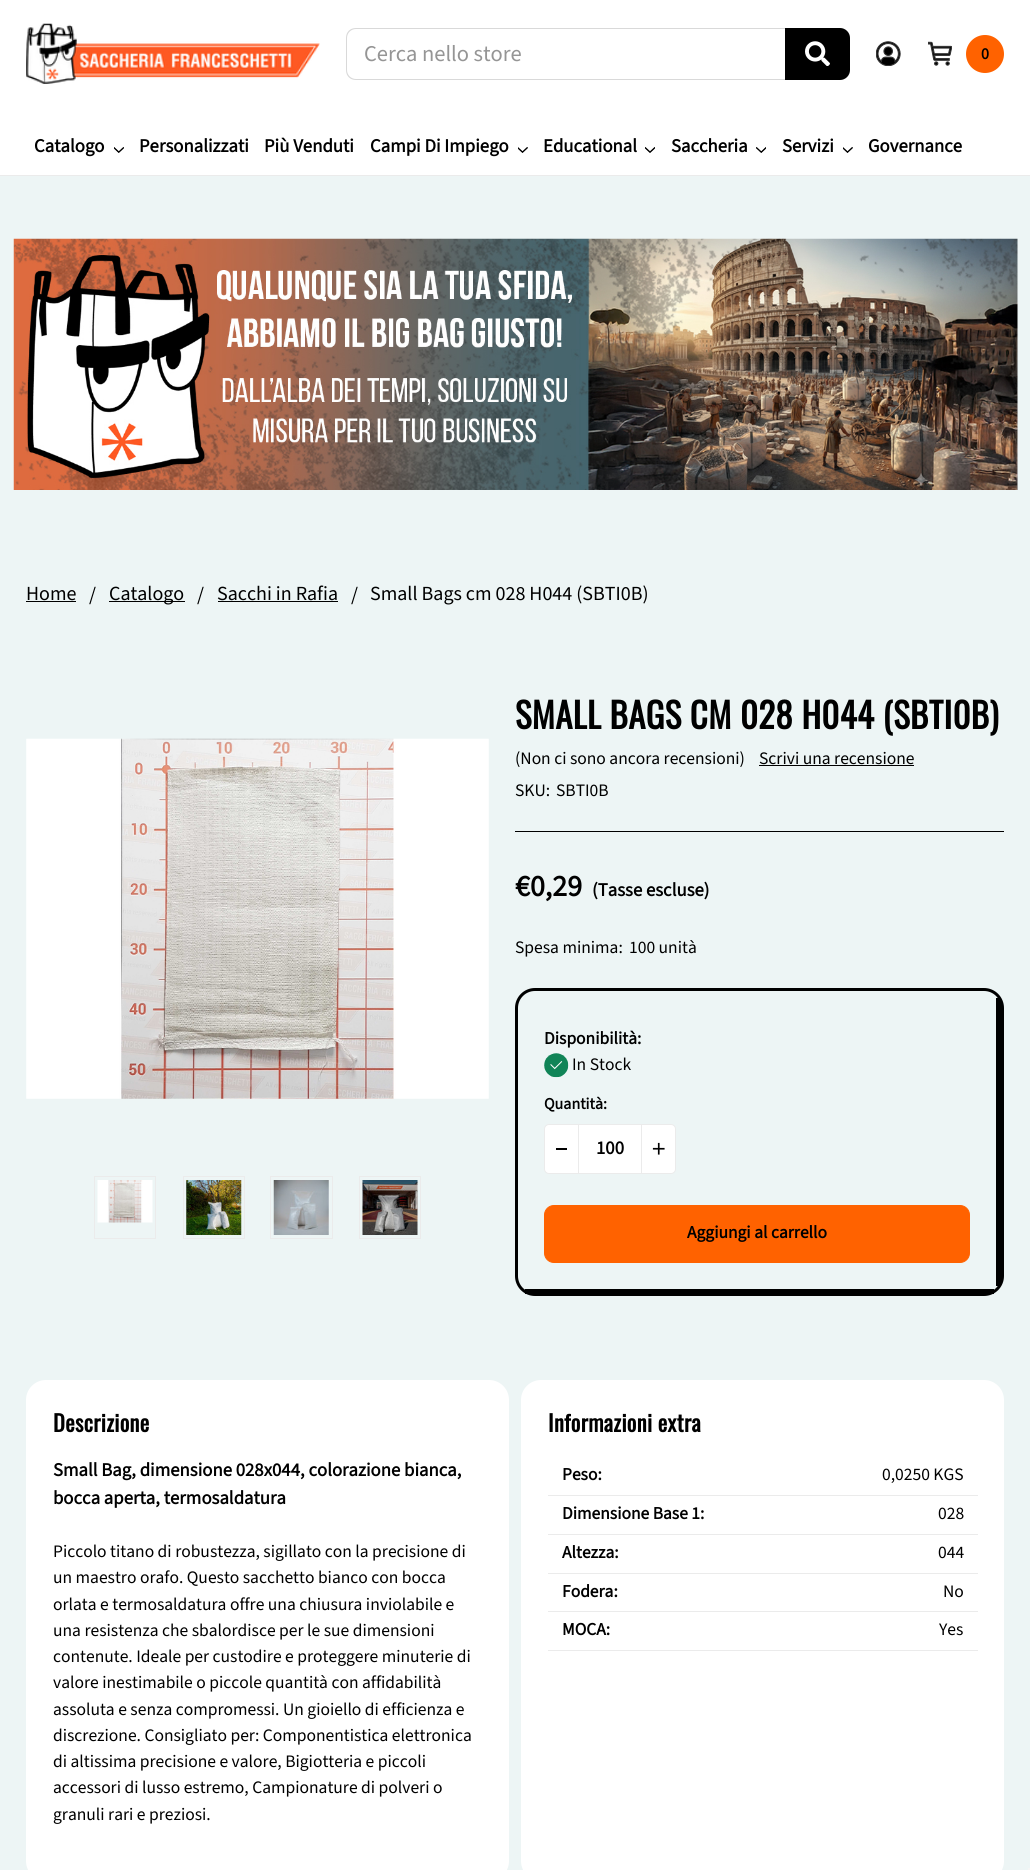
#include <cairo.h>
#include <math.h>
#include <stddef.h>

typedef struct { double x, y; const char *s; } line_t;
typedef struct { double x, y, w, h; unsigned color; } box_t;

static void ink(cairo_t *ctx, unsigned color) {
    cairo_set_source_rgb(ctx, (color >> 16) / 255.0, (color >> 8 & 255) / 255.0, (color & 255) / 255.0);
}

static void write_spaced(cairo_t *ctx, double x, double y, const char *s, double letter, double word) {
    cairo_move_to(ctx, x, y);
    while (*s) {
        char ch[5] = {0};
        int n = 0;
        do ch[n++] = *s++; while ((*s & 0xC0) == 0x80);
        cairo_show_text(ctx, ch);
        cairo_rel_move_to(ctx, letter + word * (*ch == ' '), 0);
    }
}

static void round_path(cairo_t *ctx, double x, double y, double w, double h, double r) {
    cairo_new_sub_path(ctx);
    cairo_arc(ctx, x + w - r, y + h - r, r, 0, M_PI / 2);
    cairo_arc(ctx, x + r, y + h - r, r, M_PI / 2, M_PI);
    cairo_arc(ctx, x + r, y + r, r, M_PI, 1.5 * M_PI);
    cairo_arc(ctx, x + w - r, y + r, r, 1.5 * M_PI, 2 * M_PI);
    cairo_close_path(ctx);
}

static void paste(cairo_t *ctx, const char *path, double x, double y, double w, double h) {
    cairo_surface_t *image = cairo_image_surface_create_from_png(path);
    cairo_save(ctx);
    cairo_set_source_surface(ctx, image, x, y);
    cairo_rectangle(ctx, x, y, w, h);
    cairo_fill(ctx);
    cairo_restore(ctx);
    cairo_surface_destroy(image);
}

int main(void) {
    cairo_surface_t *surface = cairo_image_surface_create(CAIRO_FORMAT_RGB24, 1030, 1870);
    cairo_t *ctx = cairo_create(surface);
    cairo_font_options_t *options = cairo_font_options_create();
    cairo_font_options_set_hint_metrics(options, CAIRO_HINT_METRICS_OFF);
    cairo_font_options_set_hint_style(options, CAIRO_HINT_STYLE_NONE);
    cairo_set_font_options(ctx, options);
    cairo_set_miter_limit(ctx, 4);
    ink(ctx, 0xEDF5F5);
    cairo_paint(ctx);
    ink(ctx, 0xFFFFFF);
    cairo_rectangle(ctx, 0, 0, 1030, 175);
    cairo_fill(ctx);
    ink(ctx, 0xEBEBEB);
    cairo_rectangle(ctx, 0, 175, 1030, 1);
    cairo_fill(ctx);
    paste(ctx, "media/1.png", 26, 23, 294, 61);
    ink(ctx, 0xD9D9D9);
    cairo_set_fill_rule(ctx, CAIRO_FILL_RULE_EVEN_ODD);
    cairo_new_path(ctx);
    cairo_move_to(ctx, 356, 28);
    cairo_curve_to(ctx, 350, 28, 346, 32, 346, 38);
    cairo_line_to(ctx, 346, 70);
    cairo_curve_to(ctx, 346, 76, 350, 80, 356, 80);
    cairo_line_to(ctx, 840, 80);
    cairo_line_to(ctx, 844, 79);
    cairo_line_to(ctx, 356, 79);
    cairo_curve_to(ctx, 351, 79, 347, 75, 347, 70);
    cairo_line_to(ctx, 347, 38);
    cairo_curve_to(ctx, 347, 33, 351, 29, 356, 29);
    cairo_line_to(ctx, 844, 29);
    cairo_line_to(ctx, 840, 28);
    cairo_close_path(ctx);
    cairo_move_to(ctx, 849, 34);
    cairo_line_to(ctx, 849, 74);
    cairo_line_to(ctx, 850, 70);
    cairo_line_to(ctx, 850, 38);
    cairo_close_path(ctx);
    cairo_fill(ctx);
    cairo_select_font_face(ctx, "Source Sans 3 ExtraLight", CAIRO_FONT_SLANT_NORMAL, CAIRO_FONT_WEIGHT_NORMAL);
    cairo_set_font_size(ctx, 22.5);
    ink(ctx, 0x959595);
    cairo_move_to(ctx, 364, 61);
    cairo_show_text(ctx, "Cerca nello store");
    ink(ctx, 0x000000);
    cairo_new_path(ctx);
    cairo_move_to(ctx, 785, 28);
    cairo_line_to(ctx, 840, 28);
    cairo_curve_to(ctx, 845.5, 28, 850, 32.5, 850, 38);
    cairo_line_to(ctx, 850, 70);
    cairo_curve_to(ctx, 850, 75.5, 845.5, 80, 840, 80);
    cairo_line_to(ctx, 785, 80);
    cairo_close_path(ctx);
    cairo_fill(ctx);
    paste(ctx, "media/2.png", 805, 41, 25, 25);
    paste(ctx, "media/3.png", 876, 41, 25, 25);
    paste(ctx, "media/4.png", 928, 41, 24, 25);
    ink(ctx, 0xFF6200);
    cairo_arc(ctx, 985, 54, 19, 0, 2 * M_PI);
    cairo_fill(ctx);
    cairo_select_font_face(ctx, "Source Sans 3", CAIRO_FONT_SLANT_NORMAL, CAIRO_FONT_WEIGHT_BOLD);
    cairo_set_font_size(ctx, 16);
    ink(ctx, 0x000000);
    cairo_move_to(ctx, 981, 59);
    cairo_show_text(ctx, "0");
    cairo_set_font_size(ctx, 18.75);
    cairo_move_to(ctx, 34, 152);
    cairo_show_text(ctx, "Catalogo");
    paste(ctx, "media/5.png", 114, 147, 10, 6);
    {
        static const line_t items[] = {
            {139, 152, "Personalizzati"},
            {264, 152, "Più Venduti"},
            {370, 152, "Campi Di Impiego"},
        };
        for (size_t i = 0; i < sizeof items / sizeof *items; i++) {
            cairo_move_to(ctx, items[i].x, items[i].y);
            cairo_show_text(ctx, items[i].s);
        }
    }
    paste(ctx, "media/6.png", 518, 147, 10, 6);
    cairo_move_to(ctx, 543, 152);
    cairo_show_text(ctx, "Educational");
    paste(ctx, "media/7.png", 645, 147, 10, 6);
    cairo_move_to(ctx, 671, 152);
    cairo_show_text(ctx, "Saccheria");
    paste(ctx, "media/8.png", 756, 147, 10, 6);
    cairo_move_to(ctx, 782, 152);
    cairo_show_text(ctx, "Servizi");
    paste(ctx, "media/6.png", 843, 147, 10, 6);
    cairo_move_to(ctx, 868, 152);
    cairo_show_text(ctx, "Governance");
    paste(ctx, "media/9.png", 13, 238, 1005, 252);
    cairo_select_font_face(ctx, "Source Sans 3 ExtraLight", CAIRO_FONT_SLANT_NORMAL, CAIRO_FONT_WEIGHT_NORMAL);
    cairo_set_font_size(ctx, 20);
    cairo_move_to(ctx, 26, 600);
    cairo_show_text(ctx, "Home");
    cairo_rectangle(ctx, 26, 601, 50, 1);
    cairo_fill(ctx);
    cairo_move_to(ctx, 89, 601);
    cairo_show_text(ctx, "/");
    cairo_rectangle(ctx, 109, 601, 76, 1);
    cairo_fill(ctx);
    {
        static const line_t items[] = {
            {109, 600, "Catalogo"},
            {197, 601, "/"},
            {217, 600, "Sacchi in Rafia"},
        };
        for (size_t i = 0; i < sizeof items / sizeof *items; i++) {
            cairo_move_to(ctx, items[i].x, items[i].y);
            cairo_show_text(ctx, items[i].s);
        }
    }
    cairo_rectangle(ctx, 218, 601, 120, 1);
    cairo_fill(ctx);
    cairo_move_to(ctx, 351, 601);
    cairo_show_text(ctx, "/");
    cairo_move_to(ctx, 370, 600);
    cairo_show_text(ctx, "Small Bags cm 028 H044 (SBTI0B)");
    paste(ctx, "media/10.png", 26, 738, 463, 361);
    cairo_rectangle(ctx, 94.5, 1176.5, 61, 62);
    ink(ctx, 0xEBEBEB);
    cairo_set_line_width(ctx, 1);
    cairo_stroke(ctx);
    paste(ctx, "media/11.png", 97, 1180, 56, 43);
    cairo_rectangle(ctx, 183.5, 1176.5, 61, 62);
    cairo_stroke(ctx);
    paste(ctx, "media/12.png", 186, 1180, 56, 55);
    cairo_rectangle(ctx, 270.5, 1176.5, 62, 62);
    cairo_stroke(ctx);
    paste(ctx, "media/13.png", 273, 1180, 56, 55);
    cairo_rectangle(ctx, 359.5, 1176.5, 61, 62);
    cairo_stroke(ctx);
    paste(ctx, "media/14.png", 362, 1180, 56, 55);
    ink(ctx, 0x000000);
    cairo_rectangle(ctx, 515, 831, 489, 1);
    cairo_fill(ctx);
    cairo_select_font_face(ctx, "Oswald", CAIRO_FONT_SLANT_NORMAL, CAIRO_FONT_WEIGHT_BOLD);
    cairo_set_font_size(ctx, 35);
    write_spaced(ctx, 515, 729, "SMALL BAGS CM 028 H044 (SBTI0B)", 0.3, 0);
    cairo_select_font_face(ctx, "Source Sans 3 ExtraLight", CAIRO_FONT_SLANT_NORMAL, CAIRO_FONT_WEIGHT_NORMAL);
    cairo_set_font_size(ctx, 17.5);
    cairo_move_to(ctx, 515, 764);
    cairo_show_text(ctx, "(Non ci sono ancora recensioni)");
    cairo_move_to(ctx, 759, 764);
    cairo_show_text(ctx, "Scrivi una recensione");
    cairo_rectangle(ctx, 759, 765, 155, 1);
    cairo_fill(ctx);
    cairo_move_to(ctx, 515, 796);
    cairo_show_text(ctx, "SKU:");
    cairo_move_to(ctx, 556, 796);
    cairo_show_text(ctx, "SBTI0B");
    cairo_select_font_face(ctx, "Source Sans 3", CAIRO_FONT_SLANT_NORMAL, CAIRO_FONT_WEIGHT_BOLD);
    cairo_set_font_size(ctx, 30);
    cairo_move_to(ctx, 515, 896);
    cairo_show_text(ctx, "€0,29");
    cairo_set_font_size(ctx, 18.75);
    cairo_move_to(ctx, 592, 896);
    cairo_show_text(ctx, "(Tasse escluse)");
    cairo_select_font_face(ctx, "Source Sans 3 ExtraLight", CAIRO_FONT_SLANT_NORMAL, CAIRO_FONT_WEIGHT_NORMAL);
    cairo_set_font_size(ctx, 17.5);
    cairo_move_to(ctx, 515, 953);
    cairo_show_text(ctx, "Spesa minima:");
    cairo_move_to(ctx, 629, 953);
    cairo_show_text(ctx, "100 unità");
    round_path(ctx, 516.5, 989.5, 486, 305, 18.5);
    cairo_set_line_width(ctx, 3);
    cairo_stroke(ctx);
    cairo_rectangle(ctx, 996, 998, 5, 288);
    cairo_fill(ctx);
    cairo_rectangle(ctx, 525, 1289, 469, 5);
    cairo_fill(ctx);
    cairo_select_font_face(ctx, "Source Sans 3", CAIRO_FONT_SLANT_NORMAL, CAIRO_FONT_WEIGHT_BOLD);
    cairo_move_to(ctx, 544, 1044);
    cairo_show_text(ctx, "Disponibilità:");
    paste(ctx, "media/15.png", 544, 1053, 25, 25);
    cairo_select_font_face(ctx, "Source Sans 3 ExtraLight", CAIRO_FONT_SLANT_NORMAL, CAIRO_FONT_WEIGHT_NORMAL);
    cairo_move_to(ctx, 572, 1070);
    cairo_show_text(ctx, "In Stock");
    cairo_select_font_face(ctx, "Source Sans 3", CAIRO_FONT_SLANT_NORMAL, CAIRO_FONT_WEIGHT_BOLD);
    cairo_set_font_size(ctx, 16);
    cairo_move_to(ctx, 544, 1109);
    cairo_show_text(ctx, "Quantità:");
    ink(ctx, 0xFFFFFF);
    cairo_new_path(ctx);
    cairo_move_to(ctx, 549, 1124.5);
    cairo_line_to(ctx, 578.5, 1124.5);
    cairo_line_to(ctx, 578.5, 1173.5);
    cairo_line_to(ctx, 549, 1173.5);
    cairo_curve_to(ctx, 546.5, 1173.5, 544.5, 1171.5, 544.5, 1169);
    cairo_line_to(ctx, 544.5, 1129);
    cairo_curve_to(ctx, 544.5, 1126.5, 546.5, 1124.5, 549, 1124.5);
    cairo_close_path(ctx);
    cairo_fill_preserve(ctx);
    ink(ctx, 0xEBEBEB);
    cairo_set_line_width(ctx, 1);
    cairo_stroke(ctx);
    {
        static const box_t items[] = {
            {556, 1148, 11, 2, 0x000000},
            {579, 1125, 62, 48, 0xFFFFFF},
            {579, 1124, 62, 1, 0xEBEBEB},
            {579, 1173, 62, 1, 0xEBEBEB},
        };
        for (size_t i = 0; i < sizeof items / sizeof *items; i++) {
            ink(ctx, items[i].color);
            cairo_rectangle(ctx, items[i].x, items[i].y, items[i].w, items[i].h);
            cairo_fill(ctx);
        }
    }
    cairo_set_font_size(ctx, 18.75);
    ink(ctx, 0x000000);
    cairo_move_to(ctx, 596, 1154);
    cairo_show_text(ctx, "100");
    ink(ctx, 0xFFFFFF);
    cairo_new_path(ctx);
    cairo_move_to(ctx, 641.5, 1124.5);
    cairo_line_to(ctx, 671, 1124.5);
    cairo_curve_to(ctx, 673.5, 1124.5, 675.5, 1126.5, 675.5, 1129);
    cairo_line_to(ctx, 675.5, 1169);
    cairo_curve_to(ctx, 675.5, 1171.5, 673.5, 1173.5, 671, 1173.5);
    cairo_line_to(ctx, 641.5, 1173.5);
    cairo_close_path(ctx);
    cairo_fill_preserve(ctx);
    ink(ctx, 0xEBEBEB);
    cairo_stroke(ctx);
    paste(ctx, "media/16.png", 652, 1142, 13, 13);
    ink(ctx, 0xFF6200);
    round_path(ctx, 544.5, 1205.5, 425, 57, 9.5);
    cairo_fill_preserve(ctx);
    cairo_stroke(ctx);
    cairo_set_font_size(ctx, 17.5);
    ink(ctx, 0x000000);
    cairo_move_to(ctx, 687, 1238);
    cairo_show_text(ctx, "Aggiungi al carrello");
    ink(ctx, 0xFFFFFF);
    round_path(ctx, 26, 1380, 483, 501, 20);
    cairo_fill(ctx);
    cairo_select_font_face(ctx, "Oswald", CAIRO_FONT_SLANT_NORMAL, CAIRO_FONT_WEIGHT_BOLD);
    cairo_set_font_size(ctx, 22.5);
    ink(ctx, 0x000000);
    write_spaced(ctx, 53, 1432, "Descrizione", 0.3, 0);
    cairo_select_font_face(ctx, "Source Sans 3", CAIRO_FONT_SLANT_NORMAL, CAIRO_FONT_WEIGHT_BOLD);
    cairo_set_font_size(ctx, 18.75);
    cairo_move_to(ctx, 53, 1476);
    cairo_show_text(ctx, "Small Bag, dimensione 028x044, colorazione bianca,");
    cairo_move_to(ctx, 53, 1504);
    cairo_show_text(ctx, "bocca aperta, termosaldatura");
    cairo_select_font_face(ctx, "Source Sans 3 ExtraLight", CAIRO_FONT_SLANT_NORMAL, CAIRO_FONT_WEIGHT_NORMAL);
    cairo_set_font_size(ctx, 17.5);
    {
        static const line_t items[] = {
            {53, 1557, "Piccolo titano di robustezza, sigillato con la precisione di"},
            {53, 1583, "un maestro orafo. Questo sacchetto bianco con bocca"},
            {53, 1610, "orlata e termosaldatura offre una chiusura inviolabile e"},
            {53, 1636, "una resistenza che sbalordisce per le sue dimensioni"},
            {53, 1662, "contenute. Ideale per custodire e proteggere minuterie di"},
            {53, 1688, "valore inestimabile o piccole quantità con affidabilità"},
            {53, 1715, "assoluta e senza compromessi. Un gioiello di efficienza e"},
            {53, 1741, "discrezione. Consigliato per: Componentistica elettronica"},
            {53, 1767, "di altissima precisione e valore, Bigiotteria e piccoli"},
            {53, 1793, "accessori di lusso estremo, Campionature di polveri o"},
            {53, 1820, "granuli rari e preziosi."},
        };
        for (size_t i = 0; i < sizeof items / sizeof *items; i++) {
            cairo_move_to(ctx, items[i].x, items[i].y);
            cairo_show_text(ctx, items[i].s);
        }
    }
    ink(ctx, 0xFFFFFF);
    round_path(ctx, 521, 1380, 483, 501, 20);
    cairo_fill(ctx);
    cairo_select_font_face(ctx, "Oswald", CAIRO_FONT_SLANT_NORMAL, CAIRO_FONT_WEIGHT_BOLD);
    cairo_set_font_size(ctx, 22.5);
    ink(ctx, 0x000000);
    write_spaced(ctx, 548, 1432, "Informazioni extra", 0.3, 0);
    ink(ctx, 0xEBEBEB);
    cairo_rectangle(ctx, 548, 1495, 430, 1);
    cairo_fill(ctx);
    cairo_select_font_face(ctx, "Source Sans 3", CAIRO_FONT_SLANT_NORMAL, CAIRO_FONT_WEIGHT_BOLD);
    cairo_set_font_size(ctx, 17.5);
    ink(ctx, 0x000000);
    cairo_move_to(ctx, 562, 1480);
    cairo_show_text(ctx, "Peso:");
    cairo_select_font_face(ctx, "Source Sans 3 ExtraLight", CAIRO_FONT_SLANT_NORMAL, CAIRO_FONT_WEIGHT_NORMAL);
    cairo_move_to(ctx, 882, 1480);
    cairo_show_text(ctx, "0,0250 KGS");
    ink(ctx, 0xEBEBEB);
    cairo_rectangle(ctx, 548, 1534, 430, 1);
    cairo_fill(ctx);
    cairo_select_font_face(ctx, "Source Sans 3", CAIRO_FONT_SLANT_NORMAL, CAIRO_FONT_WEIGHT_BOLD);
    ink(ctx, 0x000000);
    cairo_move_to(ctx, 562, 1519);
    cairo_show_text(ctx, "Dimensione Base 1:");
    cairo_select_font_face(ctx, "Source Sans 3 ExtraLight", CAIRO_FONT_SLANT_NORMAL, CAIRO_FONT_WEIGHT_NORMAL);
    cairo_move_to(ctx, 938, 1519);
    cairo_show_text(ctx, "028");
    ink(ctx, 0xEBEBEB);
    cairo_rectangle(ctx, 548, 1573, 430, 1);
    cairo_fill(ctx);
    cairo_select_font_face(ctx, "Source Sans 3", CAIRO_FONT_SLANT_NORMAL, CAIRO_FONT_WEIGHT_BOLD);
    ink(ctx, 0x000000);
    cairo_move_to(ctx, 562, 1558);
    cairo_show_text(ctx, "Altezza:");
    cairo_select_font_face(ctx, "Source Sans 3 ExtraLight", CAIRO_FONT_SLANT_NORMAL, CAIRO_FONT_WEIGHT_NORMAL);
    cairo_move_to(ctx, 938, 1558);
    cairo_show_text(ctx, "044");
    ink(ctx, 0xEBEBEB);
    cairo_rectangle(ctx, 548, 1611, 430, 1);
    cairo_fill(ctx);
    cairo_select_font_face(ctx, "Source Sans 3", CAIRO_FONT_SLANT_NORMAL, CAIRO_FONT_WEIGHT_BOLD);
    ink(ctx, 0x000000);
    cairo_move_to(ctx, 562, 1597);
    cairo_show_text(ctx, "Fodera:");
    cairo_select_font_face(ctx, "Source Sans 3 ExtraLight", CAIRO_FONT_SLANT_NORMAL, CAIRO_FONT_WEIGHT_NORMAL);
    cairo_move_to(ctx, 943, 1597);
    cairo_show_text(ctx, "No");
    ink(ctx, 0xEBEBEB);
    cairo_rectangle(ctx, 548, 1650, 430, 1);
    cairo_fill(ctx);
    cairo_select_font_face(ctx, "Source Sans 3", CAIRO_FONT_SLANT_NORMAL, CAIRO_FONT_WEIGHT_BOLD);
    ink(ctx, 0x000000);
    cairo_move_to(ctx, 562, 1635);
    cairo_show_text(ctx, "MOCA:");
    cairo_select_font_face(ctx, "Source Sans 3 ExtraLight", CAIRO_FONT_SLANT_NORMAL, CAIRO_FONT_WEIGHT_NORMAL);
    cairo_move_to(ctx, 939, 1635);
    cairo_show_text(ctx, "Yes");
    ink(ctx, 0xF5F5F5);
    cairo_rectangle(ctx, 1028, 1868, 2, 2);
    cairo_fill(ctx);
    cairo_surface_write_to_png(surface, "image.png");
    cairo_font_options_destroy(options);
    cairo_destroy(ctx);
    cairo_surface_destroy(surface);
    return 0;
}
